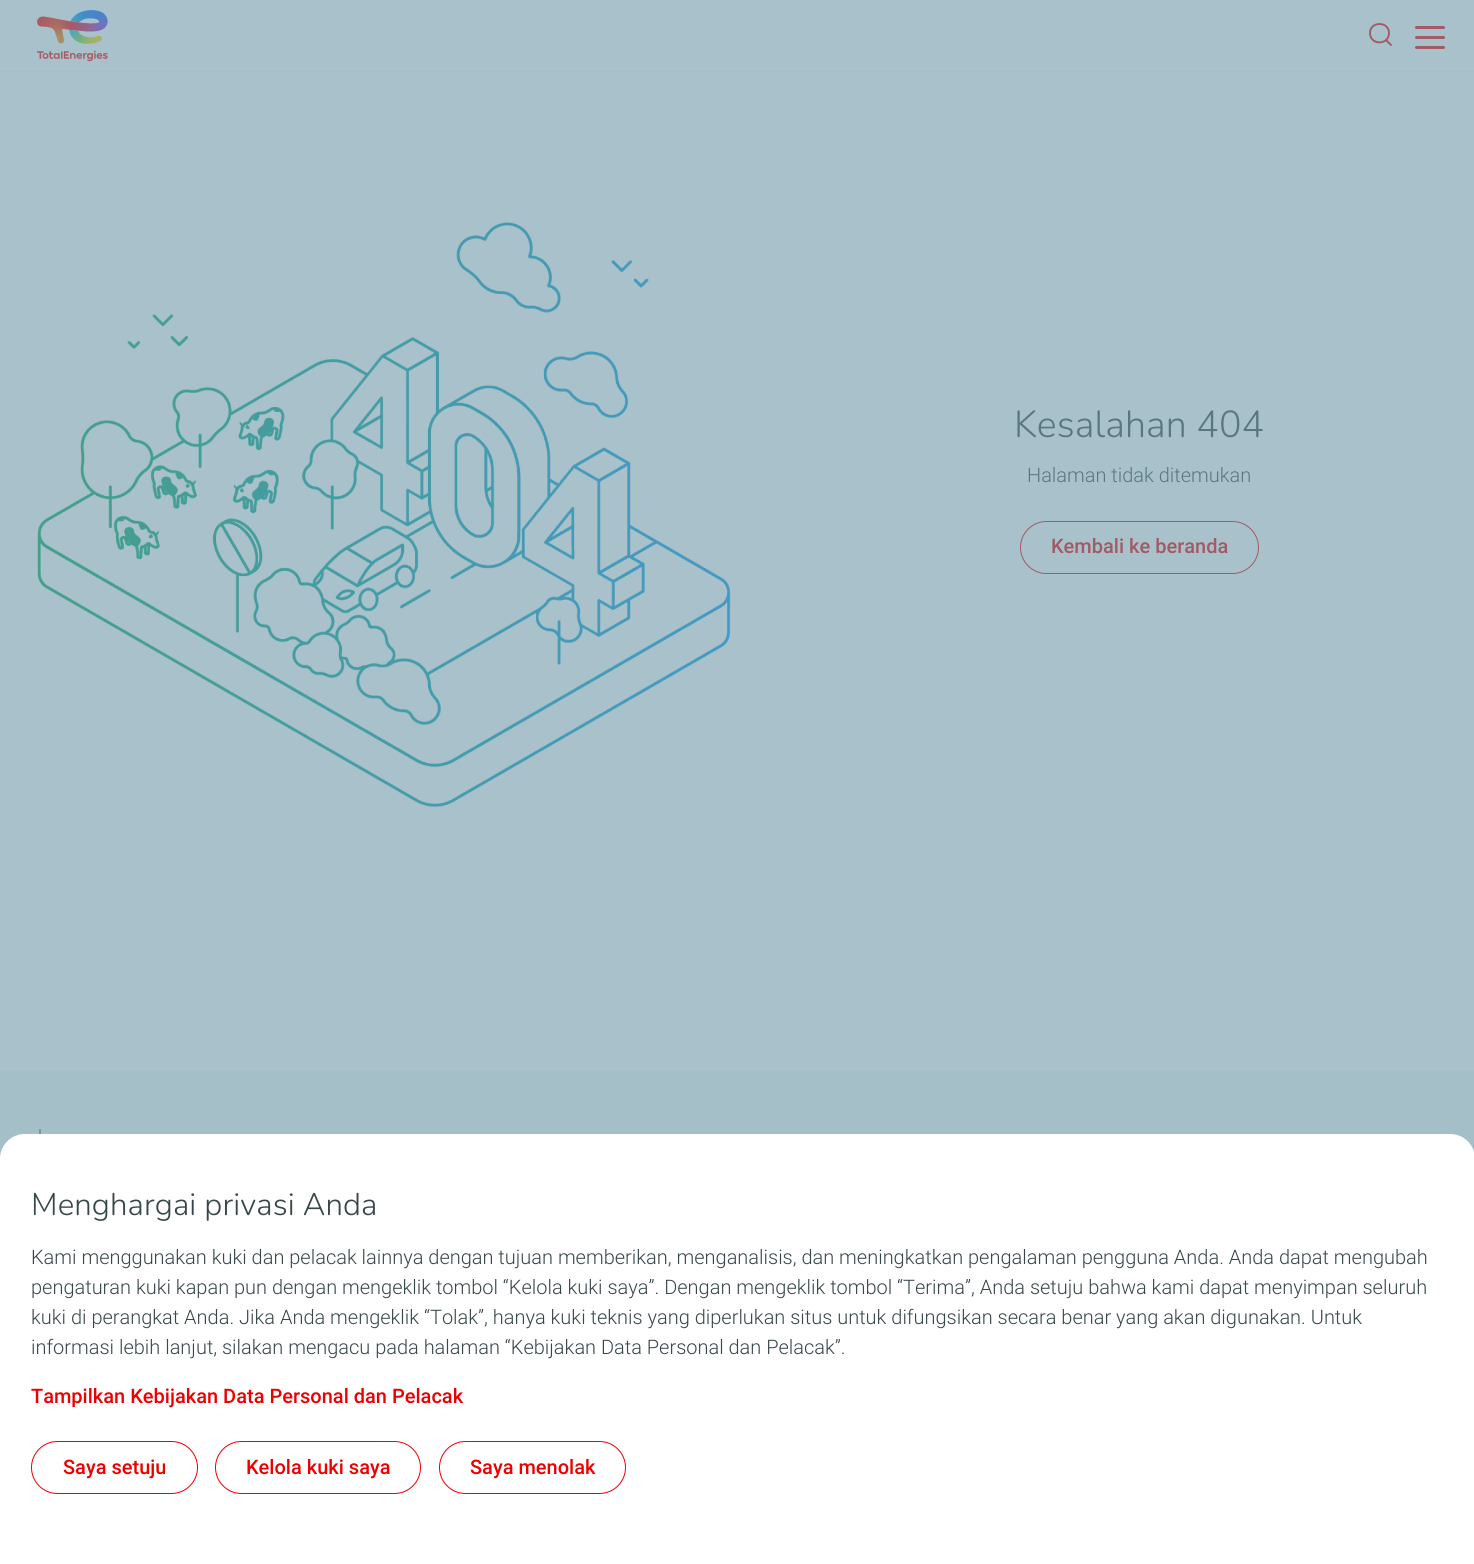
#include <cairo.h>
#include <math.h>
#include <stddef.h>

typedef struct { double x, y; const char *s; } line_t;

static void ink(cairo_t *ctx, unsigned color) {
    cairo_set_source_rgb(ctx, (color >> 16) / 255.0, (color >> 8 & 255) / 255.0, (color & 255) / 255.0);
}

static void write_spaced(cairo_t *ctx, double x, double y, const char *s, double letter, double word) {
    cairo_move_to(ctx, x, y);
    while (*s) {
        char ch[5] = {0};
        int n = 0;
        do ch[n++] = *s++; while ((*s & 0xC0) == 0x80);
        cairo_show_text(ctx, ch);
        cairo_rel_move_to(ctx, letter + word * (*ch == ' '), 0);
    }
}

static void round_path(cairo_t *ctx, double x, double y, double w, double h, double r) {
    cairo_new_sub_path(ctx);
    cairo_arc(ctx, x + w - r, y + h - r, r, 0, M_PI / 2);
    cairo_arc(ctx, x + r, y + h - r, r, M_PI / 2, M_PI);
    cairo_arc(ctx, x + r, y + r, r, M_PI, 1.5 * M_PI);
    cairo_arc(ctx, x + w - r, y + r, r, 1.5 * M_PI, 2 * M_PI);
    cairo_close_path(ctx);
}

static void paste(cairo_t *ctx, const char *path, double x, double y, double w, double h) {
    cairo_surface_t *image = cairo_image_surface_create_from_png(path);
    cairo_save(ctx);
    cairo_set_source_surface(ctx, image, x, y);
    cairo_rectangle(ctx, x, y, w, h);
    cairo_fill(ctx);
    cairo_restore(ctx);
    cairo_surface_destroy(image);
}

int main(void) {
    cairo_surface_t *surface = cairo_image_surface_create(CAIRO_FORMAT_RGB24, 1474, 1564);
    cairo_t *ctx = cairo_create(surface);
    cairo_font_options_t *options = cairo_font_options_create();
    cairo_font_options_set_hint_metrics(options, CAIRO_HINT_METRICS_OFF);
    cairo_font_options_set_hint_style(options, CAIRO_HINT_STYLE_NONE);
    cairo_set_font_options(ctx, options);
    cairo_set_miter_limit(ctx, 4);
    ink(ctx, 0xA9C1CA);
    cairo_paint(ctx);
    ink(ctx, 0xA5BFC9);
    cairo_rectangle(ctx, 0, 71, 1474, 1);
    cairo_fill(ctx);
    paste(ctx, "media/1.png", 37, 10, 71, 52);
    cairo_new_path(ctx);
    cairo_move_to(ctx, 1391, 45);
    cairo_line_to(ctx, 1386, 40);
    cairo_move_to(ctx, 1389, 33);
    cairo_curve_to(ctx, 1389, 45.5, 1370, 45.5, 1370, 33);
    cairo_curve_to(ctx, 1370, 21, 1389, 21, 1389, 33);
    cairo_close_path(ctx);
    ink(ctx, 0xA05B64);
    cairo_set_line_width(ctx, 1.9);
    cairo_set_line_cap(ctx, CAIRO_LINE_CAP_ROUND);
    cairo_set_line_join(ctx, CAIRO_LINE_JOIN_ROUND);
    cairo_stroke(ctx);
    round_path(ctx, 1415, 26, 30, 3, 1.5);
    cairo_fill(ctx);
    round_path(ctx, 1415, 36, 30, 3, 1.5);
    cairo_fill(ctx);
    round_path(ctx, 1415, 46, 30, 3, 1.5);
    cairo_fill(ctx);
    paste(ctx, "media/2.png", 37, 222, 694, 585);
    cairo_select_font_face(ctx, "Nunito Light", CAIRO_FONT_SLANT_NORMAL, CAIRO_FONT_WEIGHT_NORMAL);
    cairo_set_font_size(ctx, 37.5);
    ink(ctx, 0x597781);
    write_spaced(ctx, 1014, 437, "Kesalahan 404", 0.1, 0);
    cairo_select_font_face(ctx, "Roboto Light", CAIRO_FONT_SLANT_NORMAL, CAIRO_FONT_WEIGHT_NORMAL);
    cairo_set_font_size(ctx, 20);
    cairo_move_to(ctx, 1027, 482);
    cairo_show_text(ctx, "Halaman tidak ditemukan");
    round_path(ctx, 1020.5, 521.5, 238, 52, 26);
    ink(ctx, 0xA05B64);
    cairo_set_line_width(ctx, 1);
    cairo_set_line_cap(ctx, CAIRO_LINE_CAP_BUTT);
    cairo_set_line_join(ctx, CAIRO_LINE_JOIN_MITER);
    cairo_stroke(ctx);
    cairo_select_font_face(ctx, "Roboto Medium", CAIRO_FONT_SLANT_NORMAL, CAIRO_FONT_WEIGHT_NORMAL);
    cairo_move_to(ctx, 1051, 553);
    cairo_show_text(ctx, "Kembali ke beranda");
    ink(ctx, 0xA5BFC9);
    cairo_rectangle(ctx, 0, 1071, 1474, 88);
    cairo_fill(ctx);
    paste(ctx, "media/3.png", 39, 1129, 2, 5);
    ink(ctx, 0xFFFFFF);
    cairo_new_path(ctx);
    cairo_move_to(ctx, 25, 1134);
    cairo_line_to(ctx, 1450, 1134);
    cairo_curve_to(ctx, 1464, 1134, 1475, 1145, 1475, 1159);
    cairo_line_to(ctx, 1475, 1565);
    cairo_line_to(ctx, 0, 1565);
    cairo_line_to(ctx, 0, 1159);
    cairo_curve_to(ctx, 0, 1145, 11, 1134, 25, 1134);
    cairo_close_path(ctx);
    cairo_fill(ctx);
    cairo_select_font_face(ctx, "Nunito Light", CAIRO_FONT_SLANT_NORMAL, CAIRO_FONT_WEIGHT_NORMAL);
    cairo_set_font_size(ctx, 31.25);
    ink(ctx, 0x374649);
    write_spaced(ctx, 31, 1215, "Menghargai privasi Anda", 0.1, 0);
    cairo_select_font_face(ctx, "Roboto Light", CAIRO_FONT_SLANT_NORMAL, CAIRO_FONT_WEIGHT_NORMAL);
    cairo_set_font_size(ctx, 20);
    {
        static const line_t items[] = {
            {31, 1264, "Kami menggunakan kuki dan pelacak lainnya dengan tujuan memberikan, menganalisis, dan meningkatkan pengalaman pengguna Anda. Anda dapat mengubah"},
            {31, 1294, "pengaturan kuki kapan pun dengan mengeklik tombol “Kelola kuki saya”. Dengan mengeklik tombol “Terima”, Anda setuju bahwa kami dapat menyimpan seluruh"},
            {31, 1324, "kuki di perangkat Anda. Jika Anda mengeklik “Tolak”, hanya kuki teknis yang diperlukan situs untuk difungsikan secara benar yang akan digunakan. Untuk"},
            {31, 1354, "informasi lebih lanjut, silakan mengacu pada halaman “Kebijakan Data Personal dan Pelacak”."},
        };
        for (size_t i = 0; i < sizeof items / sizeof *items; i++) {
            cairo_move_to(ctx, items[i].x, items[i].y);
            cairo_show_text(ctx, items[i].s);
        }
    }
    cairo_select_font_face(ctx, "Roboto Medium", CAIRO_FONT_SLANT_NORMAL, CAIRO_FONT_WEIGHT_NORMAL);
    ink(ctx, 0xED0000);
    cairo_move_to(ctx, 31, 1403);
    cairo_show_text(ctx, "Tampilkan Kebijakan Data Personal dan Pelacak");
    round_path(ctx, 31.5, 1441.5, 166, 52, 26);
    cairo_stroke(ctx);
    cairo_move_to(ctx, 63, 1474);
    cairo_show_text(ctx, "Saya setuju");
    round_path(ctx, 215.5, 1441.5, 205, 52, 26);
    cairo_stroke(ctx);
    cairo_move_to(ctx, 246, 1474);
    cairo_show_text(ctx, "Kelola kuki saya");
    round_path(ctx, 439.5, 1441.5, 186, 52, 26);
    cairo_stroke(ctx);
    cairo_move_to(ctx, 470, 1474);
    cairo_show_text(ctx, "Saya menolak");
    cairo_surface_write_to_png(surface, "image.png");
    cairo_font_options_destroy(options);
    cairo_destroy(ctx);
    cairo_surface_destroy(surface);
    return 0;
}
